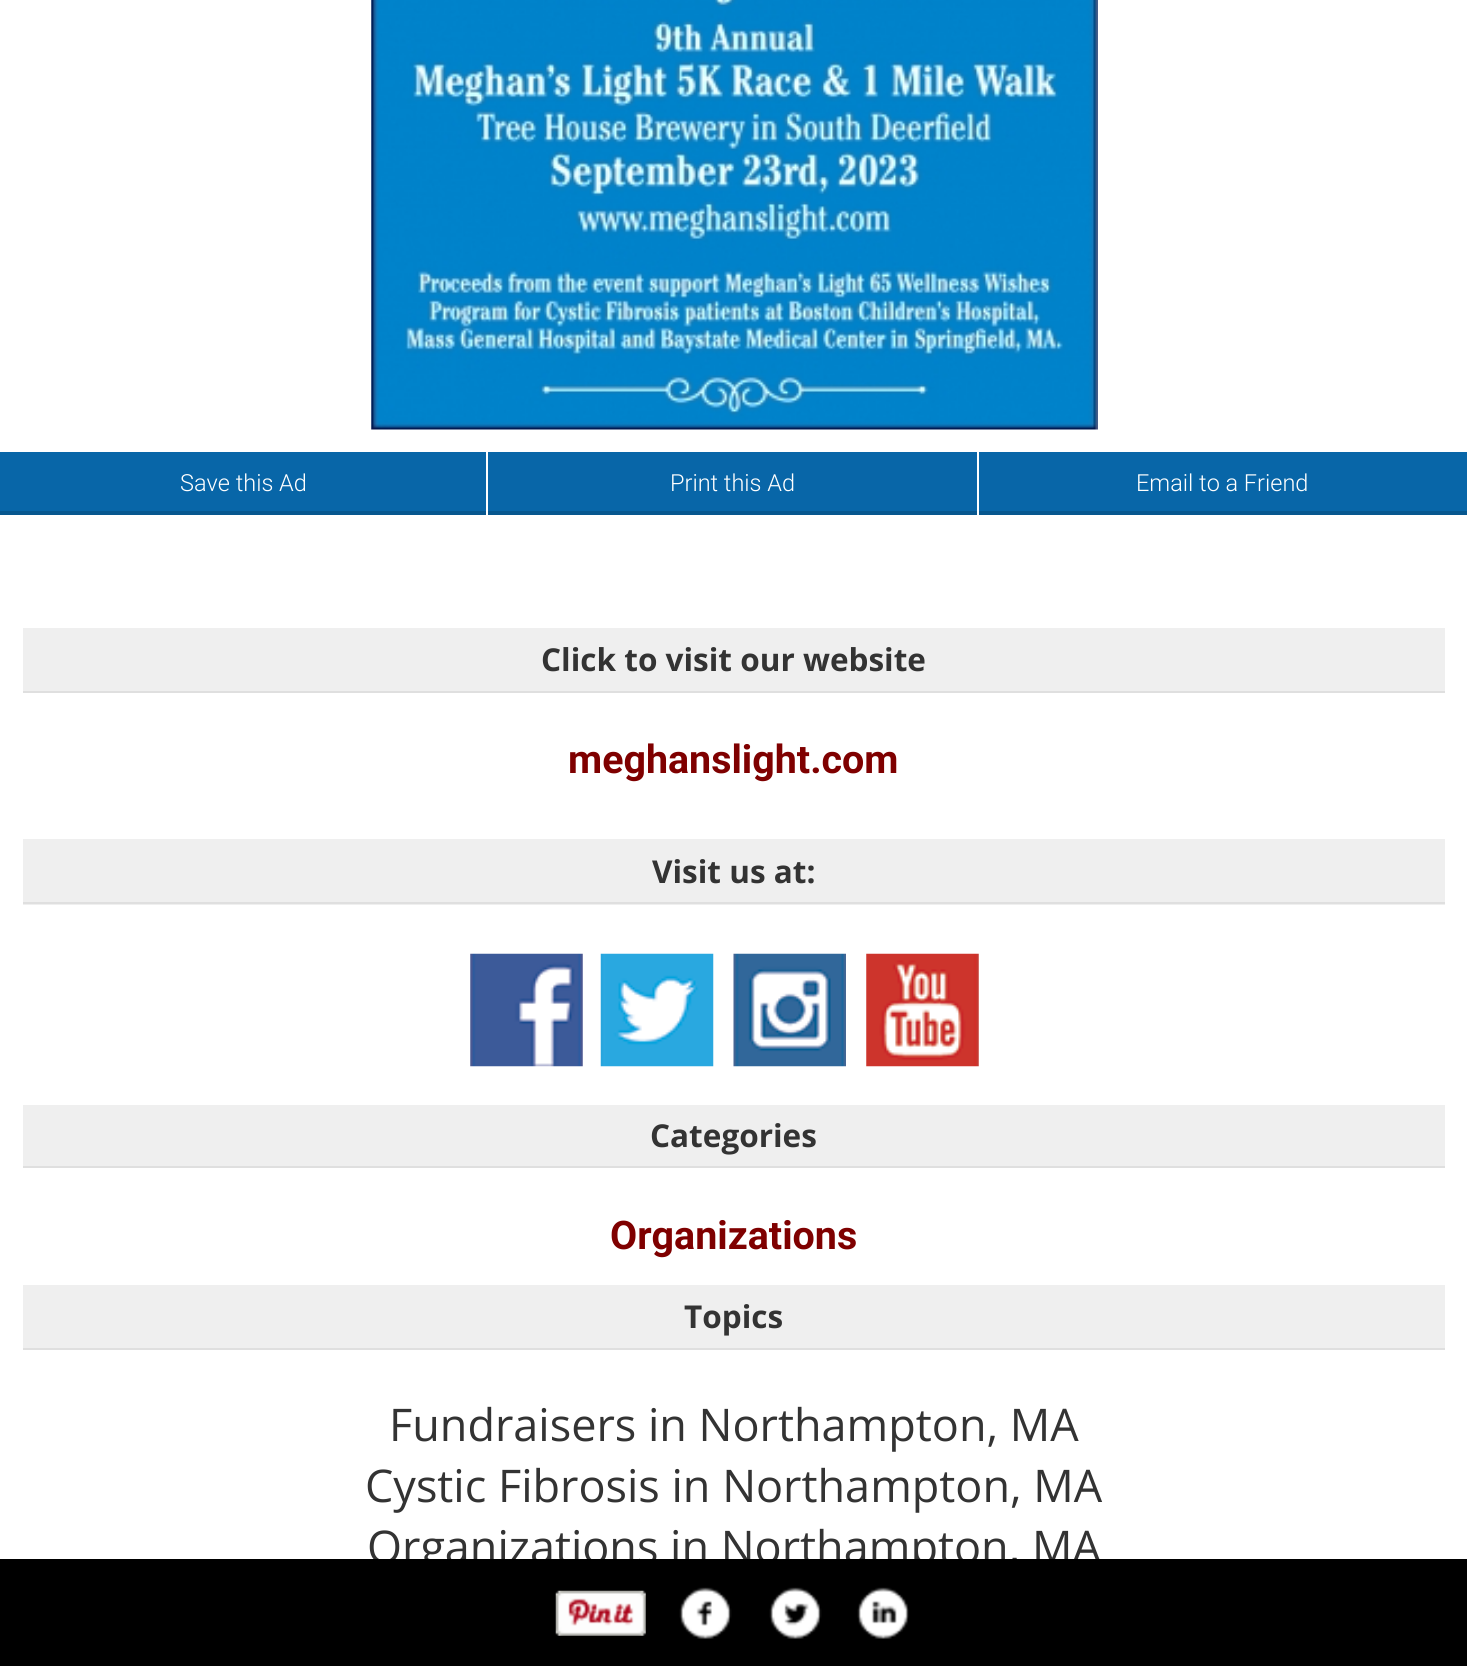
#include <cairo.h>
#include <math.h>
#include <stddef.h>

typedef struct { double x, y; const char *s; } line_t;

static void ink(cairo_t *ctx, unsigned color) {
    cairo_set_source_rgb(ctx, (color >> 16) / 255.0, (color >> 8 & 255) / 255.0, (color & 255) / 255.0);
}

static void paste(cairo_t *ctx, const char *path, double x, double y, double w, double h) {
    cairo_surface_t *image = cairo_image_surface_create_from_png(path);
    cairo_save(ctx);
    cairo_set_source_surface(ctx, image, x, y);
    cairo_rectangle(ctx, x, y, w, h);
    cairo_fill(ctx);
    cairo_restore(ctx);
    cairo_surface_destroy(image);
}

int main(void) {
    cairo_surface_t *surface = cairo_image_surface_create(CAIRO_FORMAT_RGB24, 1467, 1666);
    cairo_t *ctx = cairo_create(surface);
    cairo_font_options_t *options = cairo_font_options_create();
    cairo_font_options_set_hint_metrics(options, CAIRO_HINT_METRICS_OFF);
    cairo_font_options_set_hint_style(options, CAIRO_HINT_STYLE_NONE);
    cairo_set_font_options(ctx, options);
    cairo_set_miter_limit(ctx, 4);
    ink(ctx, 0xFFFFFF);
    cairo_paint(ctx);
    paste(ctx, "media/1.png", 371, 0, 727, 430);
    ink(ctx, 0x0866A8);
    cairo_rectangle(ctx, 0, 452, 486, 59);
    cairo_fill(ctx);
    ink(ctx, 0x07578F);
    cairo_rectangle(ctx, 0, 511, 486, 4);
    cairo_fill(ctx);
    cairo_select_font_face(ctx, "Roboto Light", CAIRO_FONT_SLANT_NORMAL, CAIRO_FONT_WEIGHT_NORMAL);
    cairo_set_font_size(ctx, 23.5);
    ink(ctx, 0xFFFFFF);
    cairo_move_to(ctx, 180, 491);
    cairo_show_text(ctx, "Save this Ad");
    ink(ctx, 0x0866A8);
    cairo_rectangle(ctx, 488, 452, 489, 59);
    cairo_fill(ctx);
    ink(ctx, 0x07578F);
    cairo_rectangle(ctx, 488, 511, 489, 4);
    cairo_fill(ctx);
    ink(ctx, 0xFFFFFF);
    cairo_move_to(ctx, 670, 491);
    cairo_show_text(ctx, "Print this Ad");
    ink(ctx, 0x0866A8);
    cairo_rectangle(ctx, 979, 452, 488, 59);
    cairo_fill(ctx);
    ink(ctx, 0x07578F);
    cairo_rectangle(ctx, 979, 511, 488, 4);
    cairo_fill(ctx);
    ink(ctx, 0xFFFFFF);
    cairo_move_to(ctx, 1136, 491);
    cairo_show_text(ctx, "Email to a Friend");
    ink(ctx, 0xEFEFEF);
    cairo_rectangle(ctx, 23, 628, 1422, 63);
    cairo_fill(ctx);
    ink(ctx, 0xDFDFDF);
    cairo_rectangle(ctx, 23, 691, 1422, 2);
    cairo_fill(ctx);
    cairo_select_font_face(ctx, "Open Sans", CAIRO_FONT_SLANT_NORMAL, CAIRO_FONT_WEIGHT_BOLD);
    cairo_set_font_size(ctx, 31.5);
    ink(ctx, 0x333333);
    cairo_move_to(ctx, 541, 671);
    cairo_show_text(ctx, "Click to visit our website");
    cairo_select_font_face(ctx, "Roboto", CAIRO_FONT_SLANT_NORMAL, CAIRO_FONT_WEIGHT_BOLD);
    cairo_set_font_size(ctx, 39.4);
    ink(ctx, 0x7F0000);
    cairo_move_to(ctx, 568, 773);
    cairo_show_text(ctx, "meghanslight.com");
    ink(ctx, 0xEFEFEF);
    cairo_rectangle(ctx, 23, 839, 1422, 66);
    cairo_fill(ctx);
    ink(ctx, 0xDFDFDF);
    cairo_rectangle(ctx, 23, 902, 1422, 2);
    cairo_fill(ctx);
    cairo_select_font_face(ctx, "Open Sans", CAIRO_FONT_SLANT_NORMAL, CAIRO_FONT_WEIGHT_BOLD);
    cairo_set_font_size(ctx, 31.5);
    ink(ctx, 0x333333);
    cairo_move_to(ctx, 652, 883);
    cairo_show_text(ctx, "Visit us at:");
    paste(ctx, "media/2.png", 470, 953, 113, 114);
    paste(ctx, "media/3.png", 600, 953, 114, 114);
    paste(ctx, "media/4.png", 733, 953, 113, 114);
    paste(ctx, "media/5.png", 866, 953, 113, 114);
    ink(ctx, 0xEFEFEF);
    cairo_rectangle(ctx, 23, 1105, 1422, 61);
    cairo_fill(ctx);
    ink(ctx, 0xDFDFDF);
    cairo_rectangle(ctx, 23, 1166, 1422, 2);
    cairo_fill(ctx);
    ink(ctx, 0x333333);
    cairo_move_to(ctx, 650, 1147);
    cairo_show_text(ctx, "Categories");
    cairo_select_font_face(ctx, "Roboto", CAIRO_FONT_SLANT_NORMAL, CAIRO_FONT_WEIGHT_BOLD);
    cairo_set_font_size(ctx, 39.4);
    ink(ctx, 0x7F0000);
    cairo_move_to(ctx, 610, 1249);
    cairo_show_text(ctx, "Organizations");
    ink(ctx, 0xEFEFEF);
    cairo_rectangle(ctx, 23, 1285, 1422, 63);
    cairo_fill(ctx);
    ink(ctx, 0xDFDFDF);
    cairo_rectangle(ctx, 23, 1348, 1422, 2);
    cairo_fill(ctx);
    cairo_select_font_face(ctx, "Open Sans", CAIRO_FONT_SLANT_NORMAL, CAIRO_FONT_WEIGHT_BOLD);
    cairo_set_font_size(ctx, 31.5);
    ink(ctx, 0x333333);
    cairo_move_to(ctx, 684, 1328);
    cairo_show_text(ctx, "Topics");
    cairo_select_font_face(ctx, "Open Sans", CAIRO_FONT_SLANT_NORMAL, CAIRO_FONT_WEIGHT_NORMAL);
    cairo_set_font_size(ctx, 45);
    {
        static const line_t items[] = {
            {389, 1441, "Fundraisers in Northampton, MA"},
            {365, 1502, "Cystic Fibrosis in Northampton, MA"},
            {367, 1563, "Organizations in Northampton, MA"},
        };
        for (size_t i = 0; i < sizeof items / sizeof *items; i++) {
            cairo_move_to(ctx, items[i].x, items[i].y);
            cairo_show_text(ctx, items[i].s);
        }
    }
    ink(ctx, 0x000000);
    cairo_rectangle(ctx, 0, 1559, 1467, 107);
    cairo_fill(ctx);
    paste(ctx, "media/6.png", 555, 1590, 91, 46);
    paste(ctx, "media/7.png", 679, 1587, 53, 52);
    paste(ctx, "media/8.png", 769, 1587, 53, 52);
    paste(ctx, "media/9.png", 857, 1587, 52, 52);
    cairo_surface_write_to_png(surface, "image.png");
    cairo_font_options_destroy(options);
    cairo_destroy(ctx);
    cairo_surface_destroy(surface);
    return 0;
}
